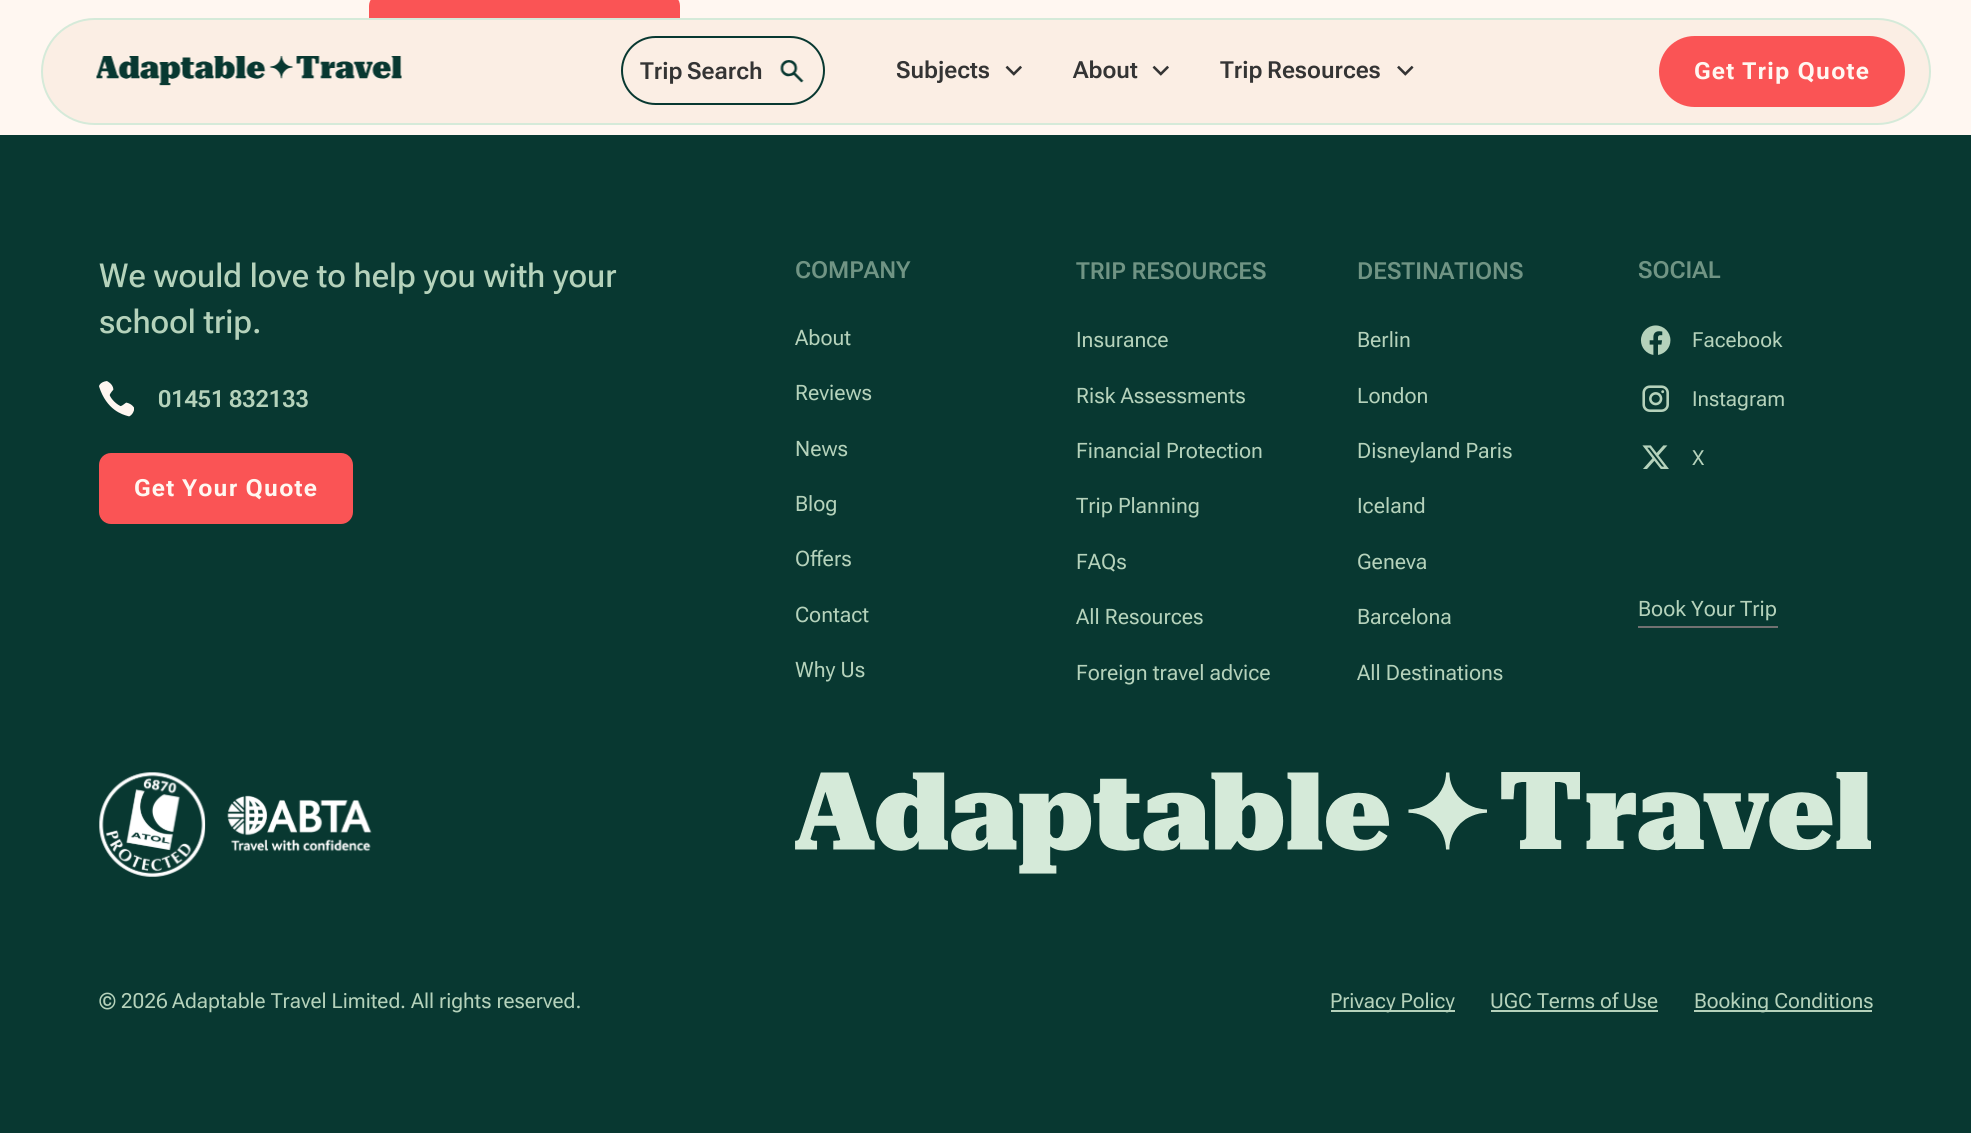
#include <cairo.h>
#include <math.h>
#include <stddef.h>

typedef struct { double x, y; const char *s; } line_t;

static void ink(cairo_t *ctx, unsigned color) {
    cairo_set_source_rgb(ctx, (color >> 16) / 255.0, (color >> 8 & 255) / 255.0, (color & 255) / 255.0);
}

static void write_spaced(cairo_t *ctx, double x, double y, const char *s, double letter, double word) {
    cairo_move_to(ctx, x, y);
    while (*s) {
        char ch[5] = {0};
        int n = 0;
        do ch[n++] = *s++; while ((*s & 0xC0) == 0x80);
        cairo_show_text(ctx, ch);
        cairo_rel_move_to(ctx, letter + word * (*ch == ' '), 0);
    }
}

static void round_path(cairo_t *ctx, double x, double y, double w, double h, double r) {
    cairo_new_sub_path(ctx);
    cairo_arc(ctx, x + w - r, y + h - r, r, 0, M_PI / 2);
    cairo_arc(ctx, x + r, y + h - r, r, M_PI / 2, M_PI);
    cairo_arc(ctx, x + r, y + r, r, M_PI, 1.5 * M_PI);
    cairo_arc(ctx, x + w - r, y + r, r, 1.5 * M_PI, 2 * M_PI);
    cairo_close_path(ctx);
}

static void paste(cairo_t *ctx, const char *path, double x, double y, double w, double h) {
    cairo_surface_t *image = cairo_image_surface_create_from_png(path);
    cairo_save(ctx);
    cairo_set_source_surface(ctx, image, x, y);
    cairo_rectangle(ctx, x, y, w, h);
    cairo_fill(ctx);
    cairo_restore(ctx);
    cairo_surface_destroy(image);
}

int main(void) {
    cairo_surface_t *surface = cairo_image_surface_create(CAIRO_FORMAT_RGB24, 1971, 1133);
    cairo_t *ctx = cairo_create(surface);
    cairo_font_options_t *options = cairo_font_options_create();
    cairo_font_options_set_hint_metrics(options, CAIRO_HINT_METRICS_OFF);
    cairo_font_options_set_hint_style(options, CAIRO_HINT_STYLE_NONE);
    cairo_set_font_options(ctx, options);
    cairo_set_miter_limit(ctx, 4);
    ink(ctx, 0xFFF7F1);
    cairo_paint(ctx);
    ink(ctx, 0xFA5455);
    round_path(ctx, 369, -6, 311, 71, 12);
    cairo_fill(ctx);
    ink(ctx, 0xFBEEE4);
    round_path(ctx, 42, 19, 1888, 105, 52.5);
    cairo_fill_preserve(ctx);
    ink(ctx, 0xD5EAD9);
    cairo_stroke(ctx);
    paste(ctx, "media/1.png", 96, 56, 306, 30);
    round_path(ctx, 622, 37, 202, 67, 33.5);
    ink(ctx, 0x083831);
    cairo_stroke(ctx);
    cairo_select_font_face(ctx, "Roboto Flex SemiBold", CAIRO_FONT_SLANT_NORMAL, CAIRO_FONT_WEIGHT_NORMAL);
    cairo_set_font_size(ctx, 23.5);
    ink(ctx, 0x343434);
    write_spaced(ctx, 640, 79, "Trip Search", 0, -1);
    paste(ctx, "media/2.png", 780, 60, 24, 23);
    cairo_move_to(ctx, 896, 78);
    cairo_show_text(ctx, "Subjects");
    paste(ctx, "media/3.png", 1005, 65, 17, 11);
    cairo_move_to(ctx, 1073, 78);
    cairo_show_text(ctx, "About");
    paste(ctx, "media/3.png", 1152, 65, 17, 11);
    write_spaced(ctx, 1220, 78, "Trip Resources", 0, -1);
    paste(ctx, "media/4.png", 1397, 65, 17, 11);
    ink(ctx, 0xFA5455);
    round_path(ctx, 1659, 36, 246, 71, 35.5);
    cairo_fill(ctx);
    cairo_select_font_face(ctx, "Roboto Flex", CAIRO_FONT_SLANT_NORMAL, CAIRO_FONT_WEIGHT_BOLD);
    ink(ctx, 0xFFF7F1);
    write_spaced(ctx, 1694, 79, "Get Trip Quote", 1.25, 0);
    ink(ctx, 0x083831);
    cairo_rectangle(ctx, 0, 135, 1971, 998);
    cairo_fill(ctx);
    cairo_select_font_face(ctx, "Roboto Flex Medium", CAIRO_FONT_SLANT_NORMAL, CAIRO_FONT_WEIGHT_NORMAL);
    cairo_set_font_size(ctx, 33);
    ink(ctx, 0xB5D2BB);
    cairo_move_to(ctx, 99, 287);
    cairo_show_text(ctx, "We would love to help you with your");
    cairo_move_to(ctx, 99, 333);
    cairo_show_text(ctx, "school trip.");
    paste(ctx, "media/5.png", 99, 381, 35, 36);
    cairo_select_font_face(ctx, "Roboto Flex SemiBold", CAIRO_FONT_SLANT_NORMAL, CAIRO_FONT_WEIGHT_NORMAL);
    cairo_set_font_size(ctx, 23.5);
    write_spaced(ctx, 158, 407, "01451 832133", 0, -1);
    ink(ctx, 0xFA5455);
    round_path(ctx, 99, 453, 254, 71, 12);
    cairo_fill(ctx);
    cairo_select_font_face(ctx, "Roboto Flex", CAIRO_FONT_SLANT_NORMAL, CAIRO_FONT_WEIGHT_BOLD);
    ink(ctx, 0xFFF7F1);
    write_spaced(ctx, 134, 496, "Get Your Quote", 1.25, 0);
    cairo_select_font_face(ctx, "Roboto Flex SemiBold", CAIRO_FONT_SLANT_NORMAL, CAIRO_FONT_WEIGHT_NORMAL);
    ink(ctx, 0x709484);
    cairo_move_to(ctx, 795, 278);
    cairo_show_text(ctx, "COMPANY");
    cairo_select_font_face(ctx, "Roboto Flex", CAIRO_FONT_SLANT_NORMAL, CAIRO_FONT_WEIGHT_NORMAL);
    cairo_set_font_size(ctx, 21.25);
    ink(ctx, 0xB5D2BB);
    {
        static const line_t items[] = {
            {795, 345, "About"},
            {795, 400, "Reviews"},
            {795, 456, "News"},
            {795, 511, "Blog"},
            {795, 566, "Offers"},
            {795, 622, "Contact"},
            {795, 677, "Why Us"},
        };
        for (size_t i = 0; i < sizeof items / sizeof *items; i++) {
            cairo_move_to(ctx, items[i].x, items[i].y);
            cairo_show_text(ctx, items[i].s);
        }
    }
    cairo_select_font_face(ctx, "Roboto Flex SemiBold", CAIRO_FONT_SLANT_NORMAL, CAIRO_FONT_WEIGHT_NORMAL);
    cairo_set_font_size(ctx, 23.5);
    ink(ctx, 0x709484);
    cairo_move_to(ctx, 1076, 279);
    cairo_show_text(ctx, "TRIP RESOURCES");
    cairo_select_font_face(ctx, "Roboto Flex", CAIRO_FONT_SLANT_NORMAL, CAIRO_FONT_WEIGHT_NORMAL);
    cairo_set_font_size(ctx, 21.25);
    ink(ctx, 0xB5D2BB);
    {
        static const line_t items[] = {
            {1076, 347, "Insurance"},
            {1076, 403, "Risk Assessments"},
            {1076, 458, "Financial Protection"},
            {1076, 513, "Trip Planning"},
            {1076, 569, "FAQs"},
            {1076, 624, "All Resources"},
            {1076, 680, "Foreign travel advice"},
        };
        for (size_t i = 0; i < sizeof items / sizeof *items; i++) {
            cairo_move_to(ctx, items[i].x, items[i].y);
            cairo_show_text(ctx, items[i].s);
        }
    }
    cairo_select_font_face(ctx, "Roboto Flex SemiBold", CAIRO_FONT_SLANT_NORMAL, CAIRO_FONT_WEIGHT_NORMAL);
    cairo_set_font_size(ctx, 23.5);
    ink(ctx, 0x709484);
    cairo_move_to(ctx, 1357, 279);
    cairo_show_text(ctx, "DESTINATIONS");
    cairo_select_font_face(ctx, "Roboto Flex", CAIRO_FONT_SLANT_NORMAL, CAIRO_FONT_WEIGHT_NORMAL);
    cairo_set_font_size(ctx, 21.25);
    ink(ctx, 0xB5D2BB);
    {
        static const line_t items[] = {
            {1357, 347, "Berlin"},
            {1357, 403, "London"},
            {1357, 458, "Disneyland Paris"},
            {1357, 513, "Iceland"},
            {1357, 569, "Geneva"},
            {1357, 624, "Barcelona"},
            {1357, 680, "All Destinations"},
        };
        for (size_t i = 0; i < sizeof items / sizeof *items; i++) {
            cairo_move_to(ctx, items[i].x, items[i].y);
            cairo_show_text(ctx, items[i].s);
        }
    }
    cairo_select_font_face(ctx, "Roboto Flex SemiBold", CAIRO_FONT_SLANT_NORMAL, CAIRO_FONT_WEIGHT_NORMAL);
    cairo_set_font_size(ctx, 23.5);
    ink(ctx, 0x709484);
    cairo_move_to(ctx, 1638, 278);
    cairo_show_text(ctx, "SOCIAL");
    paste(ctx, "media/6.png", 1640, 325, 31, 30);
    cairo_select_font_face(ctx, "Roboto Flex", CAIRO_FONT_SLANT_NORMAL, CAIRO_FONT_WEIGHT_NORMAL);
    cairo_set_font_size(ctx, 20.75);
    ink(ctx, 0xB5D2BB);
    cairo_move_to(ctx, 1692, 347);
    cairo_show_text(ctx, "Facebook");
    paste(ctx, "media/7.png", 1642, 385, 27, 27);
    cairo_move_to(ctx, 1692, 406);
    cairo_show_text(ctx, "Instagram");
    paste(ctx, "media/8.png", 1642, 445, 27, 24);
    cairo_move_to(ctx, 1692, 465);
    cairo_show_text(ctx, "X");
    ink(ctx, 0x717171);
    cairo_rectangle(ctx, 1638, 626, 140, 2);
    cairo_fill(ctx);
    cairo_set_font_size(ctx, 21.25);
    ink(ctx, 0xB5D2BB);
    cairo_move_to(ctx, 1638, 616);
    cairo_show_text(ctx, "Book Your Trip");
    paste(ctx, "media/9.png", 99, 772, 107, 105);
    paste(ctx, "media/10.png", 227, 795, 145, 57);
    paste(ctx, "media/11.png", 795, 772, 1076, 102);
    cairo_set_font_size(ctx, 20.75);
    {
        static const line_t items[] = {
            {99, 1008, "© 2026"},
            {172, 1008, "Adaptable Travel Limited"},
            {400, 1008, ". All rights reserved."},
        };
        for (size_t i = 0; i < sizeof items / sizeof *items; i++) {
            cairo_move_to(ctx, items[i].x, items[i].y);
            cairo_show_text(ctx, items[i].s);
        }
    }
    cairo_rectangle(ctx, 1331, 1010, 124, 2);
    cairo_fill(ctx);
    cairo_move_to(ctx, 1330, 1008);
    cairo_show_text(ctx, "Privacy Policy");
    cairo_move_to(ctx, 1490, 1008);
    cairo_show_text(ctx, "UGC Terms of Use");
    cairo_rectangle(ctx, 1491, 1010, 167, 2);
    cairo_fill(ctx);
    cairo_rectangle(ctx, 1694, 1010, 178, 2);
    cairo_fill(ctx);
    cairo_move_to(ctx, 1694, 1008);
    cairo_show_text(ctx, "Booking Conditions");
    cairo_surface_write_to_png(surface, "image.png");
    cairo_font_options_destroy(options);
    cairo_destroy(ctx);
    cairo_surface_destroy(surface);
    return 0;
}
